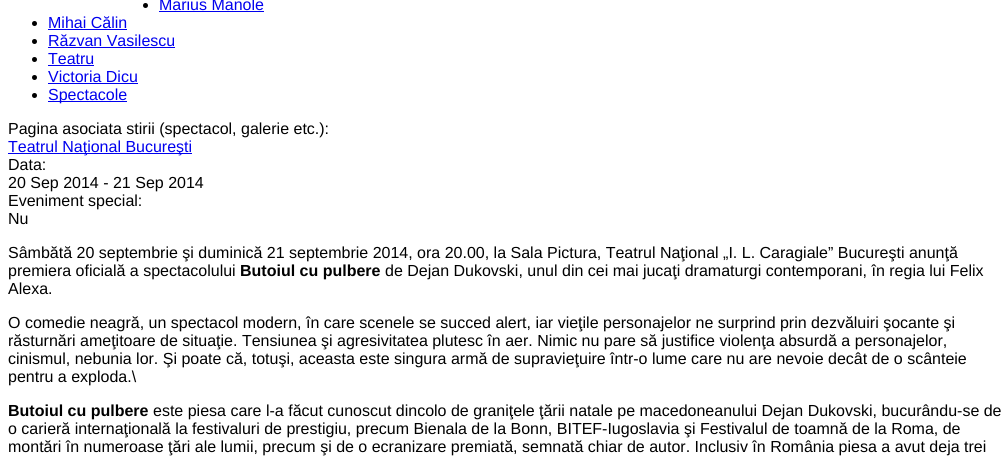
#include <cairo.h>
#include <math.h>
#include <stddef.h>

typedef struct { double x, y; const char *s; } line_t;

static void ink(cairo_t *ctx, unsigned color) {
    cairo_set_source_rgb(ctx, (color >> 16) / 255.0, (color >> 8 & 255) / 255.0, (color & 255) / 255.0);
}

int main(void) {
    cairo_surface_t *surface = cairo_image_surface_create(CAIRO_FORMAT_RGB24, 1008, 465);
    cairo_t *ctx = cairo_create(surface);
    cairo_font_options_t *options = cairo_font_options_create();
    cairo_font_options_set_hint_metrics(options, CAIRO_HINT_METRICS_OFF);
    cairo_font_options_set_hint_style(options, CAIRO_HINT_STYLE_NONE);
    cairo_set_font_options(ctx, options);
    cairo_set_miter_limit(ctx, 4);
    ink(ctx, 0xFFFFFF);
    cairo_paint(ctx);
    ink(ctx, 0x000000);
    cairo_arc(ctx, 145.5, 5.5, 2.5, 0, 2 * M_PI);
    cairo_fill(ctx);
    cairo_select_font_face(ctx, "Liberation Sans", CAIRO_FONT_SLANT_NORMAL, CAIRO_FONT_WEIGHT_NORMAL);
    cairo_set_font_size(ctx, 16);
    ink(ctx, 0x0000EE);
    cairo_move_to(ctx, 159, 10);
    cairo_show_text(ctx, "Marius Manole");
    cairo_rectangle(ctx, 159, 11, 105, 1);
    cairo_fill(ctx);
    ink(ctx, 0x000000);
    cairo_arc(ctx, 34.5, 23.5, 2.5, 0, 2 * M_PI);
    cairo_fill(ctx);
    ink(ctx, 0x0000EE);
    cairo_move_to(ctx, 48, 28);
    cairo_show_text(ctx, "Mihai Călin");
    cairo_rectangle(ctx, 48, 29, 79, 1);
    cairo_fill(ctx);
    ink(ctx, 0x000000);
    cairo_arc(ctx, 34.5, 41.5, 2.5, 0, 2 * M_PI);
    cairo_fill(ctx);
    ink(ctx, 0x0000EE);
    cairo_move_to(ctx, 48, 46);
    cairo_show_text(ctx, "Răzvan Vasilescu");
    cairo_rectangle(ctx, 48, 47, 127, 1);
    cairo_fill(ctx);
    ink(ctx, 0x000000);
    cairo_arc(ctx, 34.5, 59.5, 2.5, 0, 2 * M_PI);
    cairo_fill(ctx);
    ink(ctx, 0x0000EE);
    cairo_move_to(ctx, 48, 64);
    cairo_show_text(ctx, "Teatru");
    cairo_rectangle(ctx, 48, 65, 46, 1);
    cairo_fill(ctx);
    ink(ctx, 0x000000);
    cairo_arc(ctx, 34.5, 77.5, 2.5, 0, 2 * M_PI);
    cairo_fill(ctx);
    ink(ctx, 0x0000EE);
    cairo_move_to(ctx, 48, 82);
    cairo_show_text(ctx, "Victoria Dicu");
    cairo_rectangle(ctx, 48, 83, 90, 1);
    cairo_fill(ctx);
    ink(ctx, 0x000000);
    cairo_arc(ctx, 34.5, 95.5, 2.5, 0, 2 * M_PI);
    cairo_fill(ctx);
    ink(ctx, 0x0000EE);
    cairo_rectangle(ctx, 48, 101, 79, 1);
    cairo_fill(ctx);
    cairo_move_to(ctx, 48, 100);
    cairo_show_text(ctx, "Spectacole");
    ink(ctx, 0x000000);
    cairo_move_to(ctx, 8, 134);
    cairo_show_text(ctx, "Pagina asociata stirii (spectacol, galerie etc.):");
    ink(ctx, 0x0000EE);
    cairo_rectangle(ctx, 8, 153, 184, 1);
    cairo_fill(ctx);
    cairo_move_to(ctx, 8, 152);
    cairo_show_text(ctx, "Teatrul Naţional Bucureşti");
    ink(ctx, 0x000000);
    {
        static const line_t items[] = {
            {8, 170, "Data:"},
            {8, 188, "20 Sep 2014 - 21 Sep 2014"},
            {8, 206, "Eveniment special:"},
            {8, 224, "Nu"},
            {8, 258, "Sâmbătă 20 septembrie şi duminică 21 septembrie 2014, ora 20.00, la Sala Pictura, Teatrul Naţional „I. L. Caragiale” Bucureşti anunţă"},
            {8, 276, "premiera oficială a spectacolului"},
        };
        for (size_t i = 0; i < sizeof items / sizeof *items; i++) {
            cairo_move_to(ctx, items[i].x, items[i].y);
            cairo_show_text(ctx, items[i].s);
        }
    }
    cairo_select_font_face(ctx, "Liberation Sans", CAIRO_FONT_SLANT_NORMAL, CAIRO_FONT_WEIGHT_BOLD);
    cairo_move_to(ctx, 240, 276);
    cairo_show_text(ctx, "Butoiul cu pulbere");
    cairo_select_font_face(ctx, "Liberation Sans", CAIRO_FONT_SLANT_NORMAL, CAIRO_FONT_WEIGHT_NORMAL);
    {
        static const line_t items[] = {
            {385, 276, "de Dejan Dukovski, unul din cei mai jucaţi dramaturgi contemporani, în regia lui Felix"},
            {8, 294, "Alexa."},
            {8, 328, "O comedie neagră, un spectacol modern, în care scenele se succed alert, iar vieţile personajelor ne surprind prin dezvăluiri şocante şi"},
            {8, 346, "răsturnări ameţitoare de situaţie. Tensiunea şi agresivitatea plutesc în aer. Nimic nu pare să justifice violenţa absurdă a personajelor,"},
            {8, 364, "cinismul, nebunia lor. Şi poate că, totuşi, aceasta este singura armă de supravieţuire într-o lume care nu are nevoie decât de o scânteie"},
            {8, 382, "pentru a exploda.\\"},
        };
        for (size_t i = 0; i < sizeof items / sizeof *items; i++) {
            cairo_move_to(ctx, items[i].x, items[i].y);
            cairo_show_text(ctx, items[i].s);
        }
    }
    cairo_select_font_face(ctx, "Liberation Sans", CAIRO_FONT_SLANT_NORMAL, CAIRO_FONT_WEIGHT_BOLD);
    cairo_move_to(ctx, 8, 416);
    cairo_show_text(ctx, "Butoiul cu pulbere");
    cairo_select_font_face(ctx, "Liberation Sans", CAIRO_FONT_SLANT_NORMAL, CAIRO_FONT_WEIGHT_NORMAL);
    {
        static const line_t items[] = {
            {153, 416, "este piesa care l-a făcut cunoscut dincolo de graniţele ţării natale pe macedoneanului Dejan Dukovski, bucurându-se de"},
            {8, 434, "o carieră internaţională la festivaluri de prestigiu, precum Bienala de la Bonn, BITEF-Iugoslavia şi Festivalul de toamnă de la Roma, de"},
            {8, 452, "montări în numeroase ţări ale lumii, precum şi de o ecranizare premiată, semnată chiar de autor. Inclusiv în România piesa a avut deja trei"},
        };
        for (size_t i = 0; i < sizeof items / sizeof *items; i++) {
            cairo_move_to(ctx, items[i].x, items[i].y);
            cairo_show_text(ctx, items[i].s);
        }
    }
    cairo_surface_write_to_png(surface, "image.png");
    cairo_font_options_destroy(options);
    cairo_destroy(ctx);
    cairo_surface_destroy(surface);
    return 0;
}
